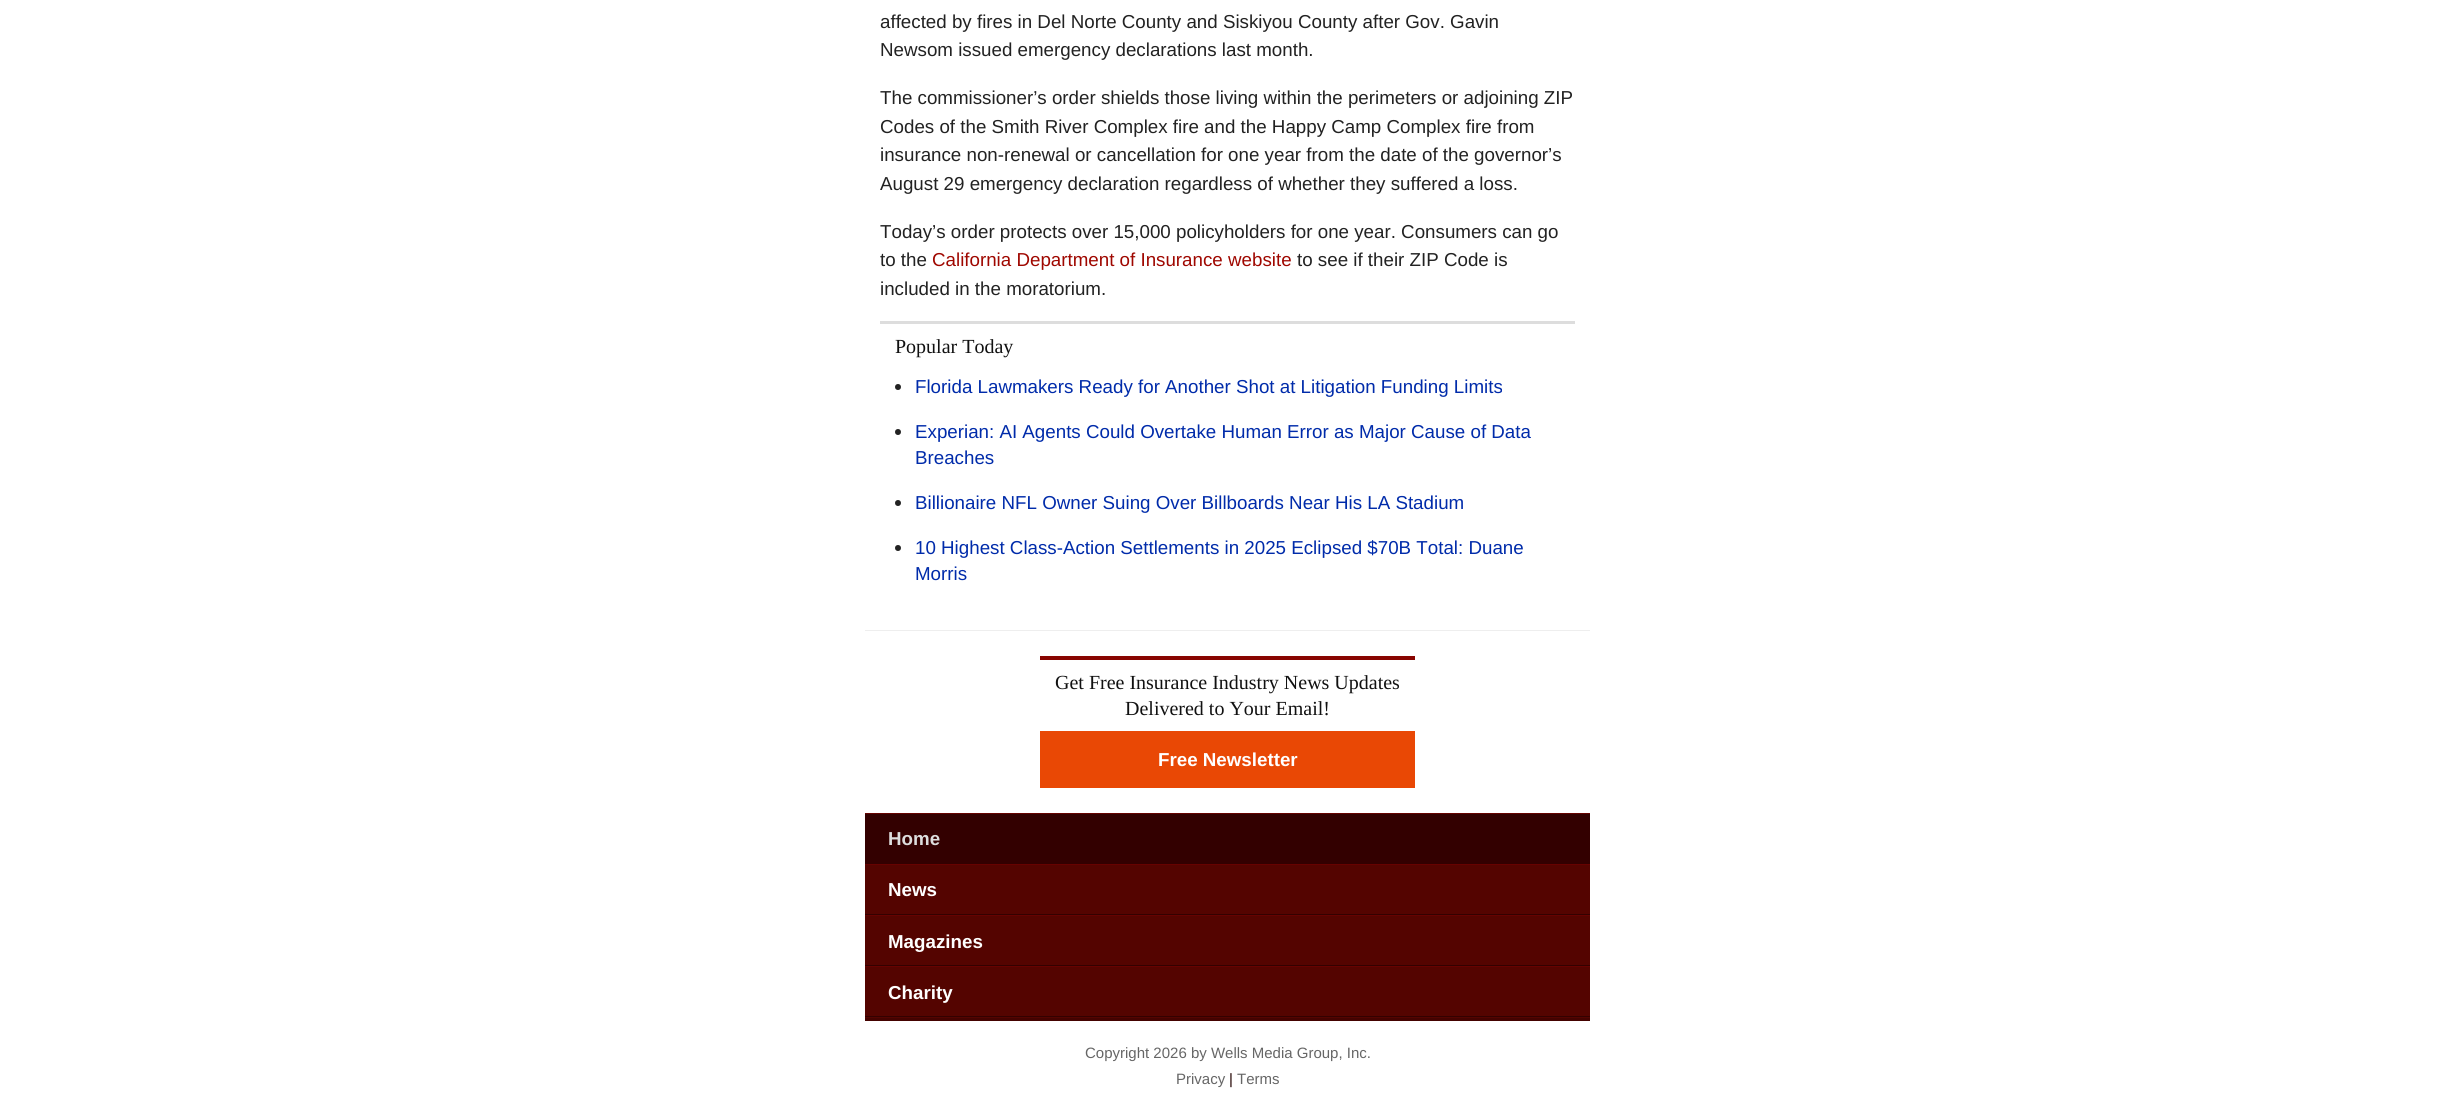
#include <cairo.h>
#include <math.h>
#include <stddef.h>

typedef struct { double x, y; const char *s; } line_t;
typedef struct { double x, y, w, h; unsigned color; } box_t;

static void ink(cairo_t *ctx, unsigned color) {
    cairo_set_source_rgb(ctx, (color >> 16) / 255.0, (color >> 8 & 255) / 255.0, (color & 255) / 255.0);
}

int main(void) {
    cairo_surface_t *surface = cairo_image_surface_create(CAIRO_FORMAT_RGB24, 2455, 1107);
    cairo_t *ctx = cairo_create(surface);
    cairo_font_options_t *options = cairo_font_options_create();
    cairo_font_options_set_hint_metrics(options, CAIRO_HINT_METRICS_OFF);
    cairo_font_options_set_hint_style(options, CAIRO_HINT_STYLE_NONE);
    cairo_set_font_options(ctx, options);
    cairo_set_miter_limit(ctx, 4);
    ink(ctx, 0xFFFFFF);
    cairo_paint(ctx);
    ink(ctx, 0xEEEEEE);
    cairo_rectangle(ctx, 865, 630, 725, 1);
    cairo_fill(ctx);
    cairo_select_font_face(ctx, "Liberation Sans", CAIRO_FONT_SLANT_NORMAL, CAIRO_FONT_WEIGHT_NORMAL);
    cairo_set_font_size(ctx, 18.75);
    ink(ctx, 0x222222);
    {
        static const line_t items[] = {
            {880, 28, "affected by fires in Del Norte County and Siskiyou County after Gov. Gavin"},
            {880, 56, "Newsom issued emergency declarations last month."},
            {880, 104, "The commissioner’s order shields those living within the perimeters or adjoining ZIP"},
            {880, 133, "Codes of the Smith River Complex fire and the Happy Camp Complex fire from"},
            {880, 161, "insurance non-renewal or cancellation for one year from the date of the governor’s"},
            {880, 190, "August 29 emergency declaration regardless of whether they suffered a loss."},
            {880, 238, "Today’s order protects over 15,000 policyholders for one year. Consumers can go"},
            {880, 266, "to the"},
        };
        for (size_t i = 0; i < sizeof items / sizeof *items; i++) {
            cairo_move_to(ctx, items[i].x, items[i].y);
            cairo_show_text(ctx, items[i].s);
        }
    }
    ink(ctx, 0x9F0700);
    cairo_move_to(ctx, 932, 266);
    cairo_show_text(ctx, "California Department of Insurance website");
    ink(ctx, 0x222222);
    cairo_move_to(ctx, 1297, 266);
    cairo_show_text(ctx, "to see if their ZIP Code is");
    cairo_move_to(ctx, 880, 295);
    cairo_show_text(ctx, "included in the moratorium.");
    ink(ctx, 0xDDDDDD);
    cairo_rectangle(ctx, 880, 321, 695, 3);
    cairo_fill(ctx);
    cairo_select_font_face(ctx, "Liberation Serif", CAIRO_FONT_SLANT_NORMAL, CAIRO_FONT_WEIGHT_NORMAL);
    cairo_set_font_size(ctx, 20);
    ink(ctx, 0x111111);
    cairo_move_to(ctx, 895, 353);
    cairo_show_text(ctx, "Popular Today");
    ink(ctx, 0x222222);
    cairo_new_path(ctx);
    cairo_arc(ctx, 898, 387, 3, 0, 2 * M_PI);
    cairo_fill(ctx);
    cairo_select_font_face(ctx, "Liberation Sans", CAIRO_FONT_SLANT_NORMAL, CAIRO_FONT_WEIGHT_NORMAL);
    cairo_set_font_size(ctx, 18.75);
    ink(ctx, 0x002BAA);
    cairo_move_to(ctx, 915, 393);
    cairo_show_text(ctx, "Florida Lawmakers Ready for Another Shot at Litigation Funding Limits");
    ink(ctx, 0x222222);
    cairo_new_path(ctx);
    cairo_arc(ctx, 898, 432, 3, 0, 2 * M_PI);
    cairo_fill(ctx);
    ink(ctx, 0x002BAA);
    cairo_move_to(ctx, 915, 438);
    cairo_show_text(ctx, "Experian: AI Agents Could Overtake Human Error as Major Cause of Data");
    cairo_move_to(ctx, 915, 464);
    cairo_show_text(ctx, "Breaches");
    ink(ctx, 0x222222);
    cairo_new_path(ctx);
    cairo_arc(ctx, 898, 503, 3, 0, 2 * M_PI);
    cairo_fill(ctx);
    ink(ctx, 0x002BAA);
    cairo_move_to(ctx, 915, 509);
    cairo_show_text(ctx, "Billionaire NFL Owner Suing Over Billboards Near His LA Stadium");
    ink(ctx, 0x222222);
    cairo_new_path(ctx);
    cairo_arc(ctx, 898, 548, 3, 0, 2 * M_PI);
    cairo_fill(ctx);
    ink(ctx, 0x002BAA);
    cairo_move_to(ctx, 915, 554);
    cairo_show_text(ctx, "10 Highest Class-Action Settlements in 2025 Eclipsed $70B Total: Duane");
    cairo_move_to(ctx, 915, 580);
    cairo_show_text(ctx, "Morris");
    ink(ctx, 0x880400);
    cairo_rectangle(ctx, 1040, 656, 375, 4);
    cairo_fill(ctx);
    cairo_select_font_face(ctx, "Liberation Serif", CAIRO_FONT_SLANT_NORMAL, CAIRO_FONT_WEIGHT_NORMAL);
    cairo_set_font_size(ctx, 20);
    ink(ctx, 0x111111);
    cairo_move_to(ctx, 1055, 689);
    cairo_show_text(ctx, "Get Free Insurance Industry News Updates");
    cairo_move_to(ctx, 1125, 715);
    cairo_show_text(ctx, "Delivered to Your Email!");
    ink(ctx, 0xE94805);
    cairo_rectangle(ctx, 1040, 731, 375, 57);
    cairo_fill(ctx);
    cairo_select_font_face(ctx, "Liberation Sans", CAIRO_FONT_SLANT_NORMAL, CAIRO_FONT_WEIGHT_BOLD);
    cairo_set_font_size(ctx, 18.75);
    ink(ctx, 0xFFFFFF);
    cairo_move_to(ctx, 1158, 766);
    cairo_show_text(ctx, "Free Newsletter");
    {
        static const box_t items[] = {
            {865, 865, 725, 153, 0x540400},
            {865, 1018, 725, 3, 0x440200},
            {865, 814, 725, 50, 0x330000},
            {865, 813, 725, 1, 0x660200},
        };
        for (size_t i = 0; i < sizeof items / sizeof *items; i++) {
            ink(ctx, items[i].color);
            cairo_rectangle(ctx, items[i].x, items[i].y, items[i].w, items[i].h);
            cairo_fill(ctx);
        }
    }
    ink(ctx, 0xDDDDDD);
    cairo_move_to(ctx, 888, 845);
    cairo_show_text(ctx, "Home");
    ink(ctx, 0x660200);
    cairo_rectangle(ctx, 865, 864, 725, 1);
    cairo_fill(ctx);
    ink(ctx, 0x330100);
    cairo_rectangle(ctx, 865, 914, 725, 1);
    cairo_fill(ctx);
    ink(ctx, 0xFFFFFF);
    cairo_move_to(ctx, 888, 896);
    cairo_show_text(ctx, "News");
    ink(ctx, 0x660200);
    cairo_rectangle(ctx, 865, 915, 725, 1);
    cairo_fill(ctx);
    ink(ctx, 0x330100);
    cairo_rectangle(ctx, 865, 965, 725, 1);
    cairo_fill(ctx);
    ink(ctx, 0xFFFFFF);
    cairo_move_to(ctx, 888, 948);
    cairo_show_text(ctx, "Magazines");
    ink(ctx, 0x660200);
    cairo_rectangle(ctx, 865, 966, 725, 1);
    cairo_fill(ctx);
    ink(ctx, 0x330100);
    cairo_rectangle(ctx, 865, 1016, 725, 1);
    cairo_fill(ctx);
    ink(ctx, 0xFFFFFF);
    cairo_move_to(ctx, 888, 999);
    cairo_show_text(ctx, "Charity");
    cairo_select_font_face(ctx, "Liberation Sans", CAIRO_FONT_SLANT_NORMAL, CAIRO_FONT_WEIGHT_NORMAL);
    cairo_set_font_size(ctx, 15);
    ink(ctx, 0x666666);
    cairo_move_to(ctx, 1085, 1058);
    cairo_show_text(ctx, "Copyright 2026 by Wells Media Group, Inc.");
    cairo_move_to(ctx, 1176, 1084);
    cairo_show_text(ctx, "Privacy");
    ink(ctx, 0x220200);
    cairo_move_to(ctx, 1229, 1084);
    cairo_show_text(ctx, "|");
    ink(ctx, 0x666666);
    cairo_move_to(ctx, 1237, 1084);
    cairo_show_text(ctx, "Terms");
    cairo_surface_write_to_png(surface, "image.png");
    cairo_font_options_destroy(options);
    cairo_destroy(ctx);
    cairo_surface_destroy(surface);
    return 0;
}
